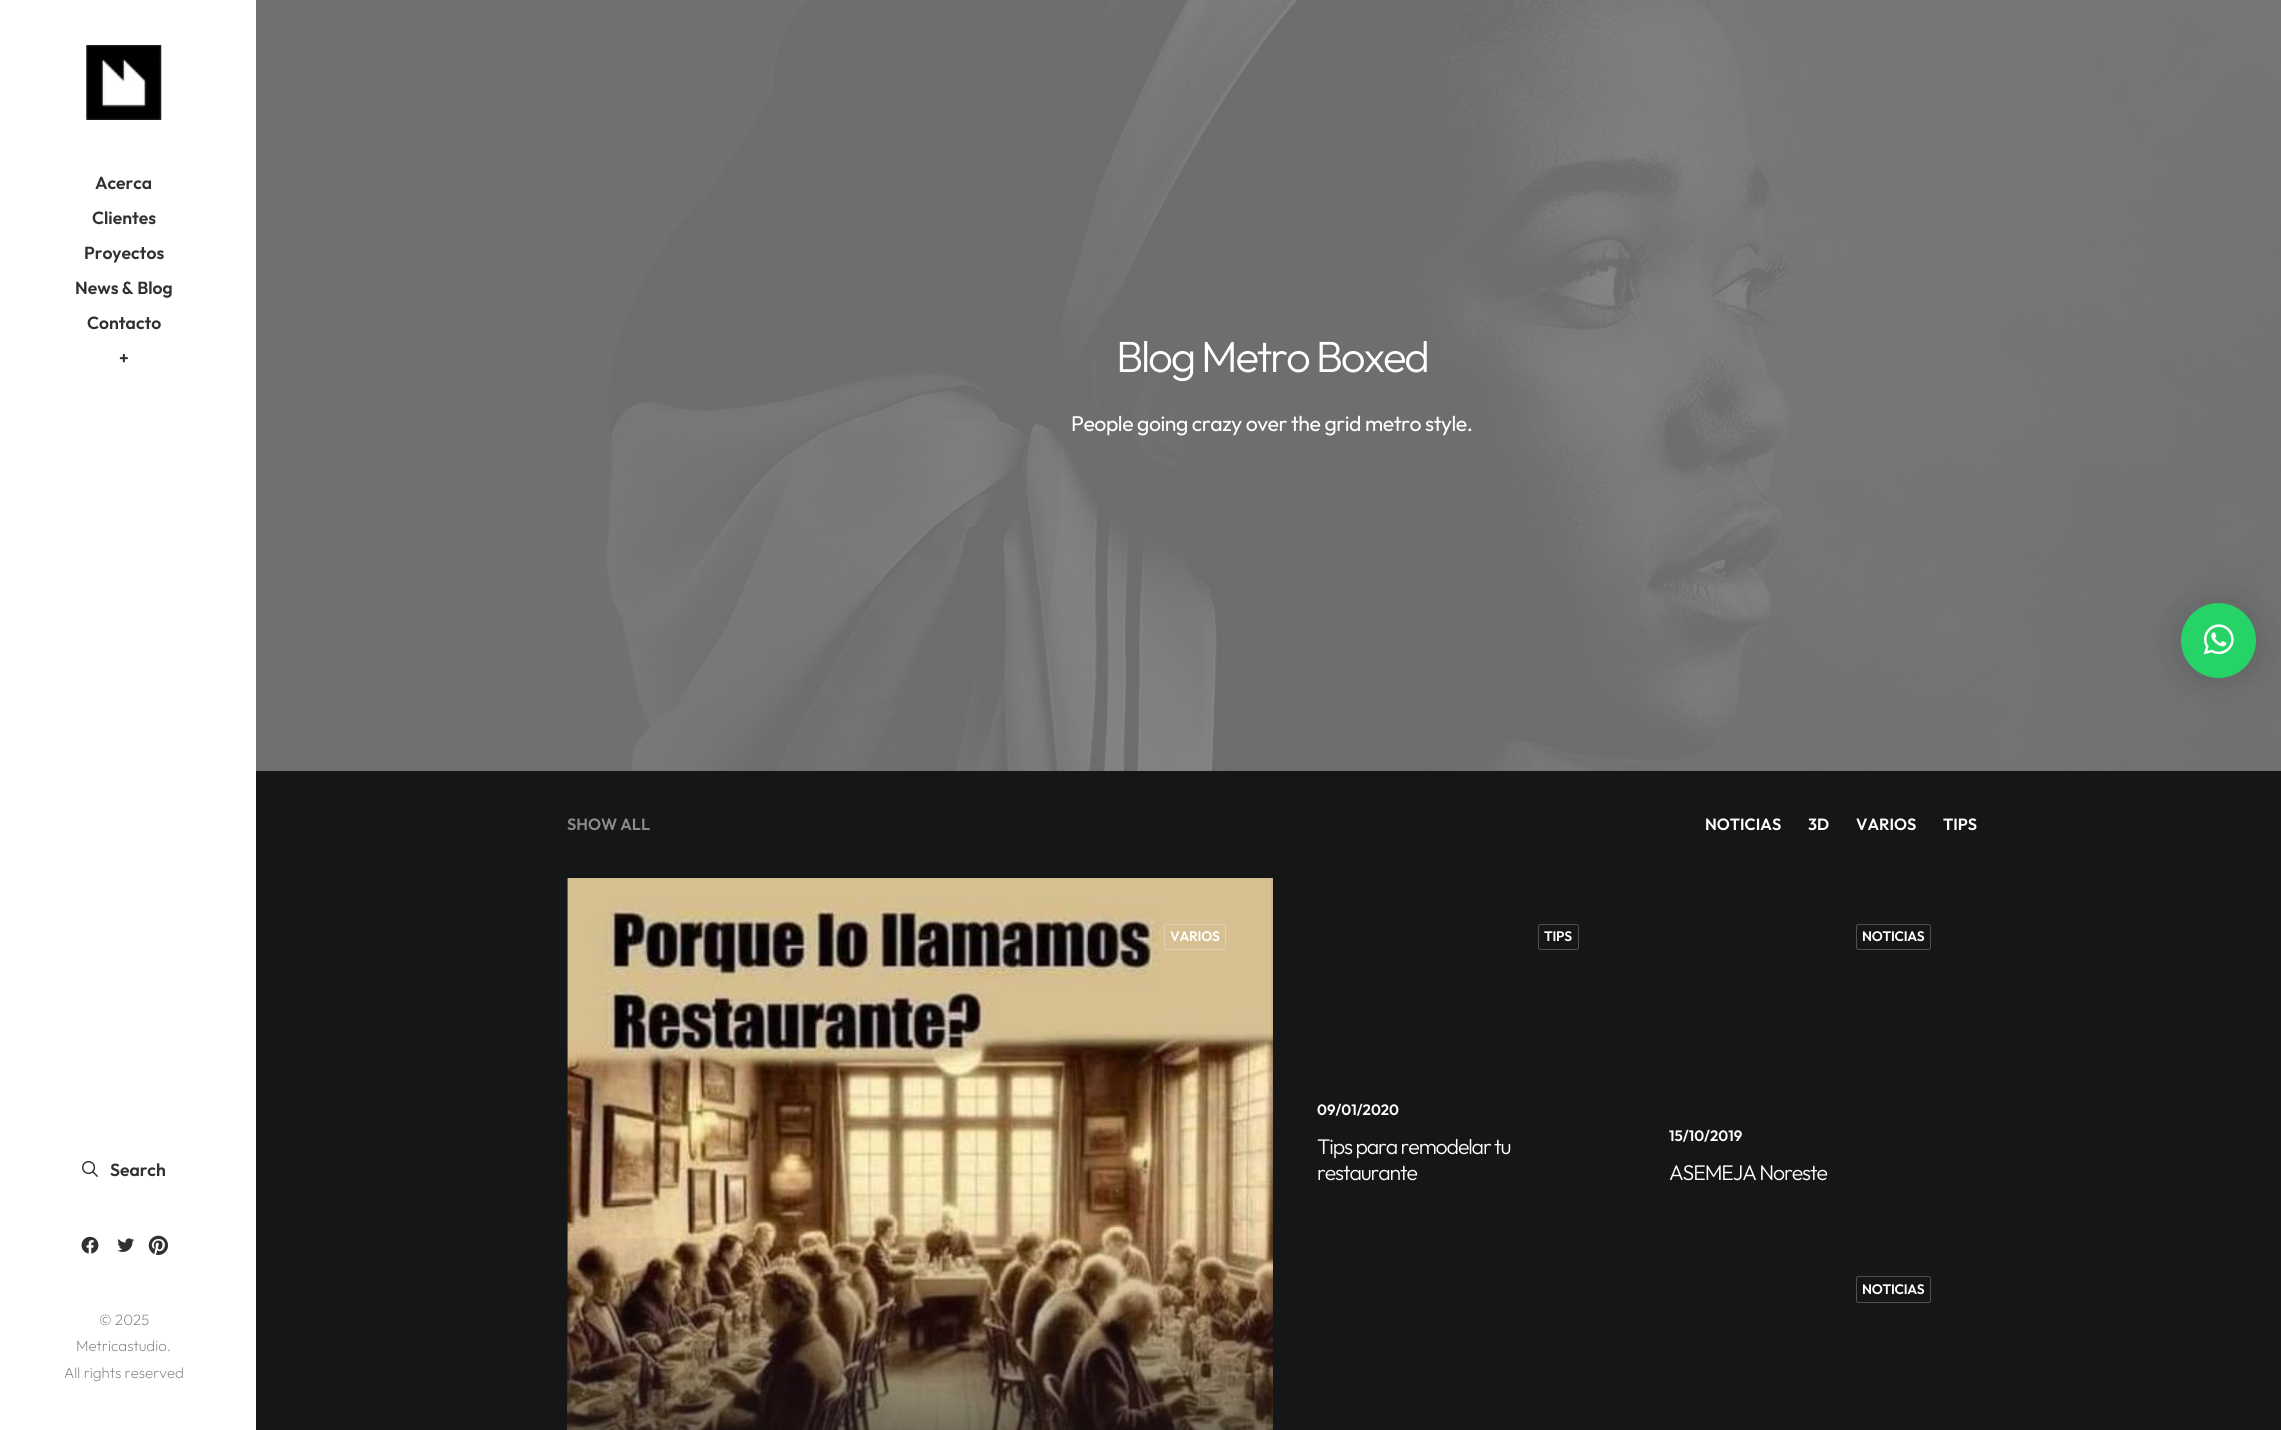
#include <cairo.h>
#include <math.h>
#include <stddef.h>

typedef struct { double x, y; const char *s; } line_t;

static void ink(cairo_t *ctx, unsigned color) {
    cairo_set_source_rgb(ctx, (color >> 16) / 255.0, (color >> 8 & 255) / 255.0, (color & 255) / 255.0);
}

static void write_spaced(cairo_t *ctx, double x, double y, const char *s, double letter, double word) {
    cairo_move_to(ctx, x, y);
    while (*s) {
        char ch[5] = {0};
        int n = 0;
        do ch[n++] = *s++; while ((*s & 0xC0) == 0x80);
        cairo_show_text(ctx, ch);
        cairo_rel_move_to(ctx, letter + word * (*ch == ' '), 0);
    }
}

static void round_path(cairo_t *ctx, double x, double y, double w, double h, double r) {
    cairo_new_sub_path(ctx);
    cairo_arc(ctx, x + w - r, y + h - r, r, 0, M_PI / 2);
    cairo_arc(ctx, x + r, y + h - r, r, M_PI / 2, M_PI);
    cairo_arc(ctx, x + r, y + r, r, M_PI, 1.5 * M_PI);
    cairo_arc(ctx, x + w - r, y + r, r, 1.5 * M_PI, 2 * M_PI);
    cairo_close_path(ctx);
}

static void blur_box(cairo_t *ctx, double x, double y, double w, double h, double r, double blur, double alpha) {
    cairo_push_group_with_content(ctx, CAIRO_CONTENT_ALPHA);
    cairo_set_operator(ctx, CAIRO_OPERATOR_SOURCE);
    for (int i = 15; i >= -15 && fmin(w, h) + blur * i / 3 > 0; i -= 2) {
        double e = blur * i / 6;
        cairo_set_source_rgba(ctx, 0, 0, 0, alpha * erfc((i - 1) / 8.5) / 2);
        round_path(ctx, x - e, y - e, w + 2 * e, h + 2 * e, fmax(0, fmin(r + e + blur * .6, fmin(w, h) / 2 + e)));
        cairo_fill(ctx);
    }
    cairo_pattern_t *soft = cairo_pop_group(ctx);
    cairo_mask(ctx, soft);
    cairo_pattern_destroy(soft);
}

static void paste(cairo_t *ctx, const char *path, double x, double y, double w, double h) {
    cairo_surface_t *image = cairo_image_surface_create_from_png(path);
    cairo_save(ctx);
    cairo_set_source_surface(ctx, image, x, y);
    cairo_rectangle(ctx, x, y, w, h);
    cairo_fill(ctx);
    cairo_restore(ctx);
    cairo_surface_destroy(image);
}

int main(void) {
    cairo_surface_t *surface = cairo_image_surface_create(CAIRO_FORMAT_RGB24, 2281, 1430);
    cairo_t *ctx = cairo_create(surface);
    cairo_font_options_t *options = cairo_font_options_create();
    cairo_font_options_set_hint_metrics(options, CAIRO_HINT_METRICS_OFF);
    cairo_font_options_set_hint_style(options, CAIRO_HINT_STYLE_NONE);
    cairo_set_font_options(ctx, options);
    cairo_set_miter_limit(ctx, 4);
    cairo_pattern_t *gradient;
    ink(ctx, 0xFFFFFF);
    cairo_paint(ctx);
    paste(ctx, "media/1.png", 86, 45, 76, 75);
    cairo_select_font_face(ctx, "Outfit SemiBold", CAIRO_FONT_SLANT_NORMAL, CAIRO_FONT_WEIGHT_NORMAL);
    cairo_set_font_size(ctx, 17.5);
    ink(ctx, 0x303133);
    {
        static const line_t items[] = {
            {95, 189, "Acerca"},
            {92, 224, "Clientes"},
            {84, 259, "Proyectos"},
            {75, 294, "News & Blog"},
            {87, 329, "Contacto"},
            {119, 364, "+"},
        };
        for (size_t i = 0; i < sizeof items / sizeof *items; i++) {
            cairo_move_to(ctx, items[i].x, items[i].y);
            cairo_show_text(ctx, items[i].s);
        }
    }
    paste(ctx, "media/2.png", 82, 1160, 16, 17);
    cairo_move_to(ctx, 110, 1176);
    cairo_show_text(ctx, "Search");
    paste(ctx, "media/3.png", 81, 1236, 18, 18);
    paste(ctx, "media/4.png", 117, 1238, 17, 14);
    paste(ctx, "media/5.png", 148, 1235, 20, 20);
    cairo_select_font_face(ctx, "Outfit ExtraLight", CAIRO_FONT_SLANT_NORMAL, CAIRO_FONT_WEIGHT_NORMAL);
    cairo_set_font_size(ctx, 15);
    ink(ctx, 0x777777);
    {
        static const line_t items[] = {
            {99, 1325, "© 2025"},
            {76, 1351, "Metricastudio."},
            {64, 1378, "All rights reserved"},
        };
        for (size_t i = 0; i < sizeof items / sizeof *items; i++) {
            cairo_move_to(ctx, items[i].x, items[i].y);
            cairo_show_text(ctx, items[i].s);
        }
    }
    paste(ctx, "media/6.png", 256, 0, 2025, 771);
    cairo_select_font_face(ctx, "Outfit Light", CAIRO_FONT_SLANT_NORMAL, CAIRO_FONT_WEIGHT_NORMAL);
    cairo_set_font_size(ctx, 43.75);
    ink(ctx, 0xFFFFFF);
    write_spaced(ctx, 1116, 372, "Blog Metro Boxed", -2.25, 0);
    cairo_select_font_face(ctx, "Outfit", CAIRO_FONT_SLANT_NORMAL, CAIRO_FONT_WEIGHT_NORMAL);
    cairo_set_font_size(ctx, 21.25);
    write_spaced(ctx, 1071, 431, "People going crazy over the grid metro style.", -0.45, 0);
    ink(ctx, 0x141618);
    cairo_rectangle(ctx, 256, 771, 2025, 659);
    cairo_fill(ctx);
    cairo_select_font_face(ctx, "Outfit SemiBold", CAIRO_FONT_SLANT_NORMAL, CAIRO_FONT_WEIGHT_NORMAL);
    cairo_set_font_size(ctx, 16.25);
    ink(ctx, 0x8A8B8C);
    cairo_move_to(ctx, 567, 830);
    cairo_show_text(ctx, "SHOW ALL");
    ink(ctx, 0xFFFFFF);
    {
        static const line_t items[] = {
            {1705, 830, "NOTICIAS"},
            {1808, 830, "3D"},
            {1856, 830, "VARIOS"},
            {1943, 830, "TIPS"},
        };
        for (size_t i = 0; i < sizeof items / sizeof *items; i++) {
            cairo_move_to(ctx, items[i].x, items[i].y);
            cairo_show_text(ctx, items[i].s);
        }
    }
    paste(ctx, "media/7.png", 567, 878, 706, 552);
    gradient = cairo_pattern_create_linear(920, 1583, 920, 878);
    cairo_pattern_add_color_stop_rgba(gradient, 0, 0.078, 0.086, 0.094, 1);
    cairo_pattern_add_color_stop_rgba(gradient, 0.5, 0.078, 0.086, 0.094, 0);
    cairo_set_source(ctx, gradient);
    cairo_pattern_destroy(gradient);
    cairo_rectangle(ctx, 568, 1238, 705, 192);
    cairo_fill(ctx);
    round_path(ctx, 1164.5, 924.5, 61, 25, 2);
    ink(ctx, 0xE0D0AD);
    cairo_set_line_width(ctx, 1);
    cairo_stroke(ctx);
    cairo_set_font_size(ctx, 13.75);
    ink(ctx, 0xFFFFFF);
    write_spaced(ctx, 1170, 941, "VARIOS", -0.25, 0);
    round_path(ctx, 1538.5, 924.5, 40, 25, 2);
    ink(ctx, 0x4F5052);
    cairo_stroke(ctx);
    ink(ctx, 0xFFFFFF);
    write_spaced(ctx, 1544, 941, "TIPS", -0.25, 0);
    cairo_set_font_size(ctx, 15);
    cairo_move_to(ctx, 1317, 1115);
    cairo_show_text(ctx, "09/01/2020");
    cairo_select_font_face(ctx, "Outfit Light", CAIRO_FONT_SLANT_NORMAL, CAIRO_FONT_WEIGHT_NORMAL);
    cairo_set_font_size(ctx, 21.25);
    write_spaced(ctx, 1317, 1154, "Tips para remodelar tu", -1.1, 0);
    write_spaced(ctx, 1317, 1180, "restaurante", -1.1, 0);
    round_path(ctx, 1856.5, 924.5, 74, 25, 2);
    ink(ctx, 0x4F5052);
    cairo_stroke(ctx);
    cairo_select_font_face(ctx, "Outfit SemiBold", CAIRO_FONT_SLANT_NORMAL, CAIRO_FONT_WEIGHT_NORMAL);
    cairo_set_font_size(ctx, 13.75);
    ink(ctx, 0xFFFFFF);
    write_spaced(ctx, 1862, 941, "NOTICIAS", -0.25, 0);
    cairo_set_font_size(ctx, 15);
    cairo_move_to(ctx, 1669, 1141);
    cairo_show_text(ctx, "15/10/2019");
    cairo_select_font_face(ctx, "Outfit Light", CAIRO_FONT_SLANT_NORMAL, CAIRO_FONT_WEIGHT_NORMAL);
    cairo_set_font_size(ctx, 21.25);
    write_spaced(ctx, 1669, 1180, "ASEMEJA Noreste", -1.1, 0);
    round_path(ctx, 1856.5, 1276.5, 74, 26, 2);
    ink(ctx, 0x4F5052);
    cairo_stroke(ctx);
    cairo_select_font_face(ctx, "Outfit SemiBold", CAIRO_FONT_SLANT_NORMAL, CAIRO_FONT_WEIGHT_NORMAL);
    cairo_set_font_size(ctx, 13.75);
    ink(ctx, 0xFFFFFF);
    write_spaced(ctx, 1862, 1294, "NOTICIAS", -0.25, 0);
    ink(ctx, 0x000000);
    blur_box(ctx, 2181, 605, 75, 75, 37.5, 20, 0.16);
    ink(ctx, 0x25D366);
    cairo_arc(ctx, 2218.5, 640.5, 37.5, 0, 2 * M_PI);
    cairo_fill(ctx);
    paste(ctx, "media/8.png", 2203, 624, 31, 31);
    cairo_surface_write_to_png(surface, "image.png");
    cairo_font_options_destroy(options);
    cairo_destroy(ctx);
    cairo_surface_destroy(surface);
    return 0;
}
